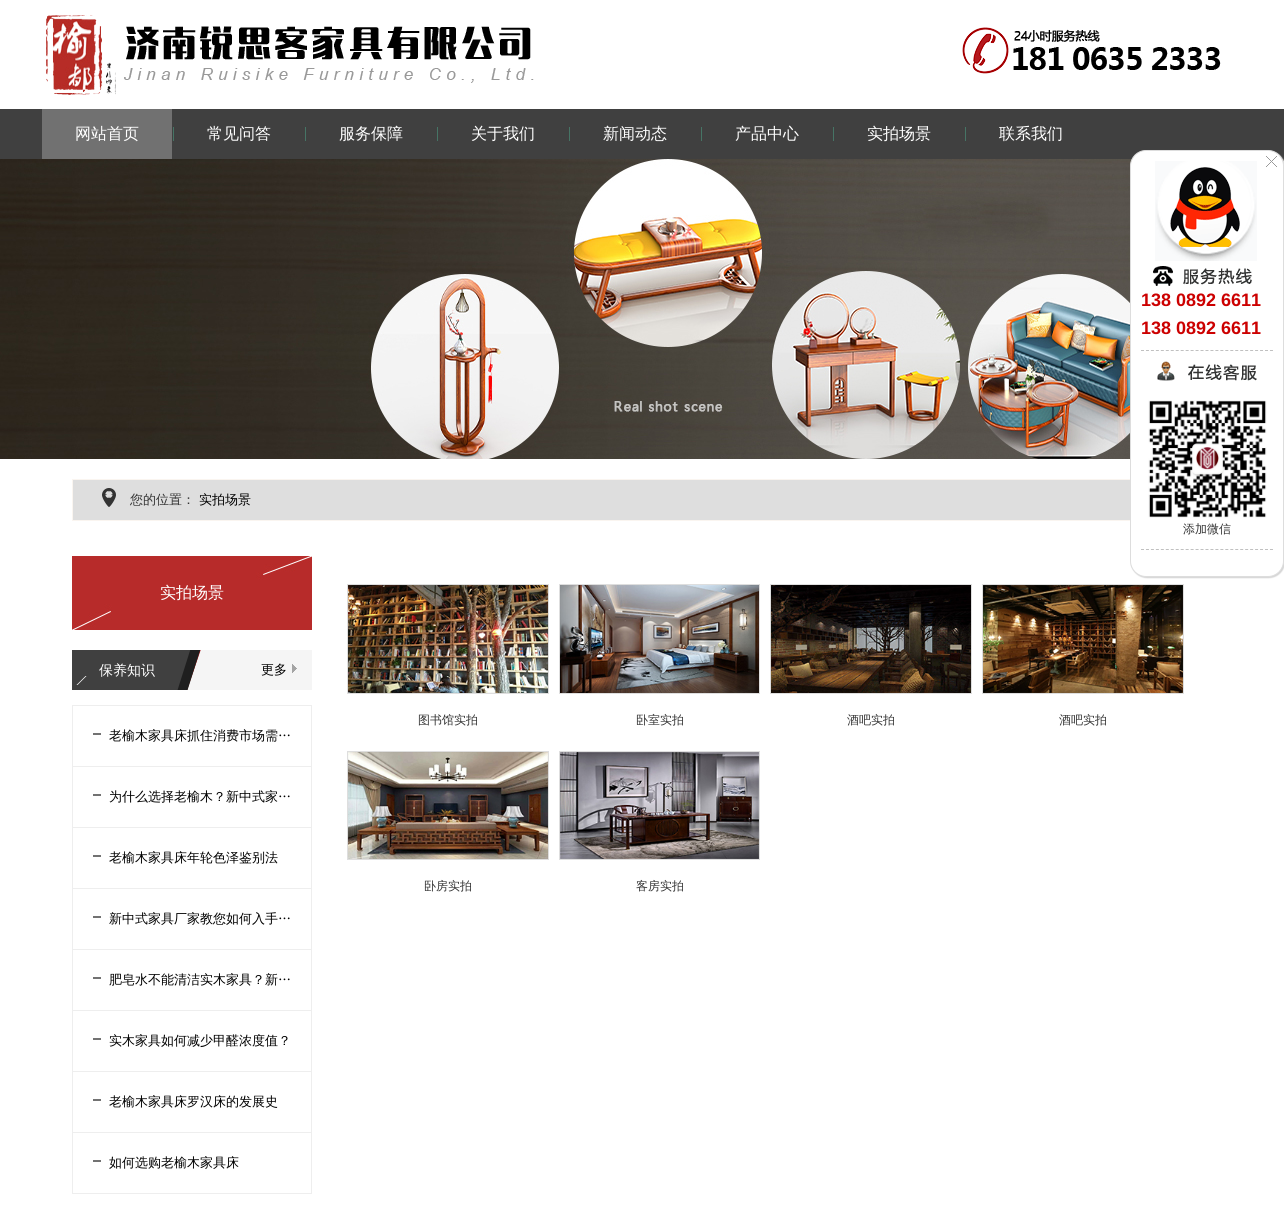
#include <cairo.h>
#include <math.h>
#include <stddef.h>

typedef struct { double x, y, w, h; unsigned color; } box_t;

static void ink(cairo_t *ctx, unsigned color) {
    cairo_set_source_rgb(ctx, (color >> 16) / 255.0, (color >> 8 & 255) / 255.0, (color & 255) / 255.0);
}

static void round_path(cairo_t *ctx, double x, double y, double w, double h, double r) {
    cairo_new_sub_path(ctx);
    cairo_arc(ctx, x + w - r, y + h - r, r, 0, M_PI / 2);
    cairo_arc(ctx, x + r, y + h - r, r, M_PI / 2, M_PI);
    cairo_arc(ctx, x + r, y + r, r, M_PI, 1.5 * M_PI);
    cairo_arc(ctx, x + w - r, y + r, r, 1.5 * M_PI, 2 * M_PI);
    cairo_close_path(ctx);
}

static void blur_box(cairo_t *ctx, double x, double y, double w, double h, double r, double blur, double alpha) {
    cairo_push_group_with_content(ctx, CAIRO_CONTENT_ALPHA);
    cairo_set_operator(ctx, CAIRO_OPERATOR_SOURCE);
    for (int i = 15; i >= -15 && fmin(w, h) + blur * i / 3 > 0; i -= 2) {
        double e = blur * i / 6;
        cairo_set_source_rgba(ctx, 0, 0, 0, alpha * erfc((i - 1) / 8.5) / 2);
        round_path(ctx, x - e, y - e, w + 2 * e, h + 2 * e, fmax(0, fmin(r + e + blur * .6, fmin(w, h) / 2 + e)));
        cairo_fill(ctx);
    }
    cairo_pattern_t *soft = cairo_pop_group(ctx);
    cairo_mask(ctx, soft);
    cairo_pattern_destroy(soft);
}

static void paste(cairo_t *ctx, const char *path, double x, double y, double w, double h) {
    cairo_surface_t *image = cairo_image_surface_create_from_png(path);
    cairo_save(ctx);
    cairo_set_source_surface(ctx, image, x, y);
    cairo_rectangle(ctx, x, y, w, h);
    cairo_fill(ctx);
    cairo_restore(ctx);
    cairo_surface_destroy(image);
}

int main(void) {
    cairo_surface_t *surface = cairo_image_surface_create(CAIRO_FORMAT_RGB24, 1284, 1212);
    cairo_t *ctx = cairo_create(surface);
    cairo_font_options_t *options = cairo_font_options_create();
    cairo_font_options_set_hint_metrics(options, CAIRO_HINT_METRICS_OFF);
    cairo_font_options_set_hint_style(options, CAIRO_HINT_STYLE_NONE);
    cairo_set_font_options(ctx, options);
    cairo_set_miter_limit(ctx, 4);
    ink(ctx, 0xFFFFFF);
    cairo_paint(ctx);
    paste(ctx, "media/1.png", 46, 15, 1175, 80);
    ink(ctx, 0x404040);
    cairo_rectangle(ctx, 0, 109, 1284, 50);
    cairo_fill(ctx);
    ink(ctx, 0x717171);
    cairo_rectangle(ctx, 42, 109, 130, 50);
    cairo_fill(ctx);
    cairo_select_font_face(ctx, "WenQuanYi Zen Hei Medium", CAIRO_FONT_SLANT_NORMAL, CAIRO_FONT_WEIGHT_NORMAL);
    cairo_set_font_size(ctx, 16);
    ink(ctx, 0xFFFFFF);
    cairo_move_to(ctx, 75, 139);
    cairo_show_text(ctx, "网站首页");
    ink(ctx, 0x467465);
    cairo_rectangle(ctx, 173, 127, 1, 14);
    cairo_fill(ctx);
    ink(ctx, 0xFFFFFF);
    cairo_move_to(ctx, 207, 139);
    cairo_show_text(ctx, "常见问答");
    ink(ctx, 0x467465);
    cairo_rectangle(ctx, 305, 127, 1, 14);
    cairo_fill(ctx);
    ink(ctx, 0xFFFFFF);
    cairo_move_to(ctx, 339, 139);
    cairo_show_text(ctx, "服务保障");
    ink(ctx, 0x467465);
    cairo_rectangle(ctx, 437, 127, 1, 14);
    cairo_fill(ctx);
    ink(ctx, 0xFFFFFF);
    cairo_move_to(ctx, 471, 139);
    cairo_show_text(ctx, "关于我们");
    ink(ctx, 0x467465);
    cairo_rectangle(ctx, 569, 127, 1, 14);
    cairo_fill(ctx);
    ink(ctx, 0xFFFFFF);
    cairo_move_to(ctx, 603, 139);
    cairo_show_text(ctx, "新闻动态");
    ink(ctx, 0x467465);
    cairo_rectangle(ctx, 701, 127, 1, 14);
    cairo_fill(ctx);
    ink(ctx, 0xFFFFFF);
    cairo_move_to(ctx, 735, 139);
    cairo_show_text(ctx, "产品中心");
    ink(ctx, 0x467465);
    cairo_rectangle(ctx, 833, 127, 1, 14);
    cairo_fill(ctx);
    ink(ctx, 0xFFFFFF);
    cairo_move_to(ctx, 867, 139);
    cairo_show_text(ctx, "实拍场景");
    ink(ctx, 0x467465);
    cairo_rectangle(ctx, 965, 127, 1, 14);
    cairo_fill(ctx);
    ink(ctx, 0xFFFFFF);
    cairo_move_to(ctx, 999, 139);
    cairo_show_text(ctx, "联系我们");
    paste(ctx, "media/2.png", 0, 159, 1284, 300);
    cairo_rectangle(ctx, 72.5, 479.5, 1139, 41);
    ink(ctx, 0xFAF5F0);
    cairo_set_line_width(ctx, 1);
    cairo_stroke(ctx);
    ink(ctx, 0xDEDEDE);
    cairo_rectangle(ctx, 73, 480, 1057, 40);
    cairo_fill(ctx);
    paste(ctx, "media/3.png", 102, 488, 14, 19);
    cairo_set_font_size(ctx, 13);
    ink(ctx, 0x333333);
    cairo_move_to(ctx, 130, 504);
    cairo_show_text(ctx, "您的位置：");
    ink(ctx, 0x000000);
    cairo_move_to(ctx, 199, 504);
    cairo_show_text(ctx, "实拍场景");
    paste(ctx, "media/4.png", 72, 556, 240, 74);
    cairo_set_font_size(ctx, 16);
    ink(ctx, 0xFFFFFF);
    cairo_move_to(ctx, 160, 598);
    cairo_show_text(ctx, "实拍场景");
    ink(ctx, 0xF5F5F5);
    cairo_rectangle(ctx, 187, 650, 125, 40);
    cairo_fill(ctx);
    paste(ctx, "media/5.png", 72, 650, 129, 40);
    cairo_set_font_size(ctx, 14);
    ink(ctx, 0xFFFFFF);
    cairo_move_to(ctx, 99, 675);
    cairo_show_text(ctx, "保养知识");
    cairo_new_path(ctx);
    cairo_move_to(ctx, 85.5, 676);
    cairo_line_to(ctx, 86.5, 676);
    cairo_line_to(ctx, 77.5, 685);
    cairo_line_to(ctx, 76.5, 685);
    cairo_close_path(ctx);
    cairo_fill(ctx);
    paste(ctx, "media/6.png", 292, 664, 5, 9);
    cairo_set_font_size(ctx, 13);
    ink(ctx, 0x000000);
    cairo_move_to(ctx, 261, 674);
    cairo_show_text(ctx, "更多");
    {
        static const box_t items[] = {
            {72, 1193, 240, 1, 0xEEEEEE},
            {72, 705, 240, 1, 0xEEEEEE},
            {311, 705, 1, 61, 0xEEEEEE},
            {72, 705, 1, 61, 0xEEEEEE},
            {93, 733, 8, 2, 0x727272},
        };
        for (size_t i = 0; i < sizeof items / sizeof *items; i++) {
            ink(ctx, items[i].color);
            cairo_rectangle(ctx, items[i].x, items[i].y, items[i].w, items[i].h);
            cairo_fill(ctx);
        }
    }
    ink(ctx, 0x000000);
    cairo_move_to(ctx, 109, 740);
    cairo_show_text(ctx, "老榆木家具床抓住消费市场需…");
    {
        static const box_t items[] = {
            {72, 766, 240, 1, 0xEEEEEE},
            {311, 766, 1, 61, 0xEEEEEE},
            {72, 766, 1, 61, 0xEEEEEE},
            {93, 794, 8, 2, 0x727272},
        };
        for (size_t i = 0; i < sizeof items / sizeof *items; i++) {
            ink(ctx, items[i].color);
            cairo_rectangle(ctx, items[i].x, items[i].y, items[i].w, items[i].h);
            cairo_fill(ctx);
        }
    }
    ink(ctx, 0x000000);
    cairo_move_to(ctx, 109, 801);
    cairo_show_text(ctx, "为什么选择老榆木？新中式家…");
    {
        static const box_t items[] = {
            {72, 827, 240, 1, 0xEEEEEE},
            {311, 827, 1, 61, 0xEEEEEE},
            {72, 827, 1, 61, 0xEEEEEE},
            {93, 855, 8, 2, 0x727272},
        };
        for (size_t i = 0; i < sizeof items / sizeof *items; i++) {
            ink(ctx, items[i].color);
            cairo_rectangle(ctx, items[i].x, items[i].y, items[i].w, items[i].h);
            cairo_fill(ctx);
        }
    }
    ink(ctx, 0x000000);
    cairo_move_to(ctx, 109, 862);
    cairo_show_text(ctx, "老榆木家具床年轮色泽鉴别法");
    {
        static const box_t items[] = {
            {72, 888, 240, 1, 0xEEEEEE},
            {311, 888, 1, 61, 0xEEEEEE},
            {72, 888, 1, 61, 0xEEEEEE},
            {93, 916, 8, 2, 0x727272},
        };
        for (size_t i = 0; i < sizeof items / sizeof *items; i++) {
            ink(ctx, items[i].color);
            cairo_rectangle(ctx, items[i].x, items[i].y, items[i].w, items[i].h);
            cairo_fill(ctx);
        }
    }
    ink(ctx, 0x000000);
    cairo_move_to(ctx, 109, 923);
    cairo_show_text(ctx, "新中式家具厂家教您如何入手…");
    {
        static const box_t items[] = {
            {72, 949, 240, 1, 0xEEEEEE},
            {311, 949, 1, 61, 0xEEEEEE},
            {72, 949, 1, 61, 0xEEEEEE},
            {93, 977, 8, 2, 0x727272},
        };
        for (size_t i = 0; i < sizeof items / sizeof *items; i++) {
            ink(ctx, items[i].color);
            cairo_rectangle(ctx, items[i].x, items[i].y, items[i].w, items[i].h);
            cairo_fill(ctx);
        }
    }
    ink(ctx, 0x000000);
    cairo_move_to(ctx, 109, 984);
    cairo_show_text(ctx, "肥皂水不能清洁实木家具？新…");
    {
        static const box_t items[] = {
            {72, 1010, 240, 1, 0xEEEEEE},
            {311, 1010, 1, 61, 0xEEEEEE},
            {72, 1010, 1, 61, 0xEEEEEE},
            {93, 1038, 8, 2, 0x727272},
        };
        for (size_t i = 0; i < sizeof items / sizeof *items; i++) {
            ink(ctx, items[i].color);
            cairo_rectangle(ctx, items[i].x, items[i].y, items[i].w, items[i].h);
            cairo_fill(ctx);
        }
    }
    ink(ctx, 0x000000);
    cairo_move_to(ctx, 109, 1045);
    cairo_show_text(ctx, "实木家具如何减少甲醛浓度值？");
    {
        static const box_t items[] = {
            {72, 1071, 240, 1, 0xEEEEEE},
            {311, 1071, 1, 61, 0xEEEEEE},
            {72, 1071, 1, 61, 0xEEEEEE},
            {93, 1099, 8, 2, 0x727272},
        };
        for (size_t i = 0; i < sizeof items / sizeof *items; i++) {
            ink(ctx, items[i].color);
            cairo_rectangle(ctx, items[i].x, items[i].y, items[i].w, items[i].h);
            cairo_fill(ctx);
        }
    }
    ink(ctx, 0x000000);
    cairo_move_to(ctx, 109, 1106);
    cairo_show_text(ctx, "老榆木家具床罗汉床的发展史");
    {
        static const box_t items[] = {
            {72, 1132, 240, 1, 0xEEEEEE},
            {311, 1132, 1, 61, 0xEEEEEE},
            {72, 1132, 1, 61, 0xEEEEEE},
            {93, 1160, 8, 2, 0x727272},
        };
        for (size_t i = 0; i < sizeof items / sizeof *items; i++) {
            ink(ctx, items[i].color);
            cairo_rectangle(ctx, items[i].x, items[i].y, items[i].w, items[i].h);
            cairo_fill(ctx);
        }
    }
    ink(ctx, 0x000000);
    cairo_move_to(ctx, 109, 1167);
    cairo_show_text(ctx, "如何选购老榆木家具床");
    cairo_rectangle(ctx, 347.5, 584.5, 201, 109);
    ink(ctx, 0xDEDEDE);
    cairo_stroke(ctx);
    paste(ctx, "media/7.png", 348, 585, 200, 108);
    cairo_set_font_size(ctx, 12);
    ink(ctx, 0x333333);
    cairo_move_to(ctx, 418, 724);
    cairo_show_text(ctx, "图书馆实拍");
    cairo_rectangle(ctx, 559.5, 584.5, 200, 109);
    ink(ctx, 0xDEDEDE);
    cairo_stroke(ctx);
    paste(ctx, "media/8.png", 560, 585, 199, 108);
    ink(ctx, 0x333333);
    cairo_move_to(ctx, 636, 724);
    cairo_show_text(ctx, "卧室实拍");
    cairo_rectangle(ctx, 770.5, 584.5, 201, 109);
    ink(ctx, 0xDEDEDE);
    cairo_stroke(ctx);
    paste(ctx, "media/9.png", 771, 585, 200, 108);
    ink(ctx, 0x333333);
    cairo_move_to(ctx, 847, 724);
    cairo_show_text(ctx, "酒吧实拍");
    cairo_rectangle(ctx, 982.5, 584.5, 201, 109);
    ink(ctx, 0xDEDEDE);
    cairo_stroke(ctx);
    paste(ctx, "media/10.png", 983, 585, 200, 108);
    ink(ctx, 0x333333);
    cairo_move_to(ctx, 1059, 724);
    cairo_show_text(ctx, "酒吧实拍");
    cairo_rectangle(ctx, 347.5, 751.5, 201, 108);
    ink(ctx, 0xDEDEDE);
    cairo_stroke(ctx);
    paste(ctx, "media/11.png", 348, 752, 200, 107);
    ink(ctx, 0x333333);
    cairo_move_to(ctx, 424, 890);
    cairo_show_text(ctx, "卧房实拍");
    cairo_rectangle(ctx, 559.5, 751.5, 200, 108);
    ink(ctx, 0xDEDEDE);
    cairo_stroke(ctx);
    paste(ctx, "media/12.png", 560, 752, 199, 107);
    ink(ctx, 0x333333);
    cairo_move_to(ctx, 636, 890);
    cairo_show_text(ctx, "客房实拍");
    ink(ctx, 0xD4D4D4);
    blur_box(ctx, 1131, 151, 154, 427, 16, 0.5, 1);
    ink(ctx, 0xFFFFFF);
    round_path(ctx, 1130.5, 150.5, 153, 426, 15.5);
    cairo_fill_preserve(ctx);
    ink(ctx, 0xDDDDDD);
    cairo_stroke(ctx);
    paste(ctx, "media/13.png", 1155, 161, 102, 100);
    paste(ctx, "media/14.png", 1266, 156, 11, 11);
    paste(ctx, "media/15.png", 1153, 266, 99, 20);
    cairo_select_font_face(ctx, "Liberation Sans", CAIRO_FONT_SLANT_NORMAL, CAIRO_FONT_WEIGHT_BOLD);
    cairo_set_font_size(ctx, 18);
    ink(ctx, 0xCC0000);
    cairo_move_to(ctx, 1141, 306);
    cairo_show_text(ctx, "138 0892 6611");
    cairo_move_to(ctx, 1141, 334);
    cairo_show_text(ctx, "138 0892 6611");
    cairo_new_path(ctx);
    cairo_move_to(ctx, 1141, 350.5);
    cairo_line_to(ctx, 1273, 350.5);
    ink(ctx, 0xC0C0C0);
    cairo_set_dash(ctx, (double[]){3, 1.96}, 2, 0);
    cairo_stroke(ctx);
    paste(ctx, "media/16.png", 1157, 361, 100, 20);
    paste(ctx, "media/17.png", 1148, 400, 119, 118);
    cairo_select_font_face(ctx, "WenQuanYi Zen Hei Medium", CAIRO_FONT_SLANT_NORMAL, CAIRO_FONT_WEIGHT_NORMAL);
    cairo_set_font_size(ctx, 12);
    ink(ctx, 0x333333);
    cairo_move_to(ctx, 1183, 533);
    cairo_show_text(ctx, "添加微信");
    cairo_new_path(ctx);
    cairo_move_to(ctx, 1141, 549.5);
    cairo_line_to(ctx, 1273, 549.5);
    ink(ctx, 0xC0C0C0);
    cairo_stroke(ctx);
    cairo_surface_write_to_png(surface, "image.png");
    cairo_font_options_destroy(options);
    cairo_destroy(ctx);
    cairo_surface_destroy(surface);
    return 0;
}
